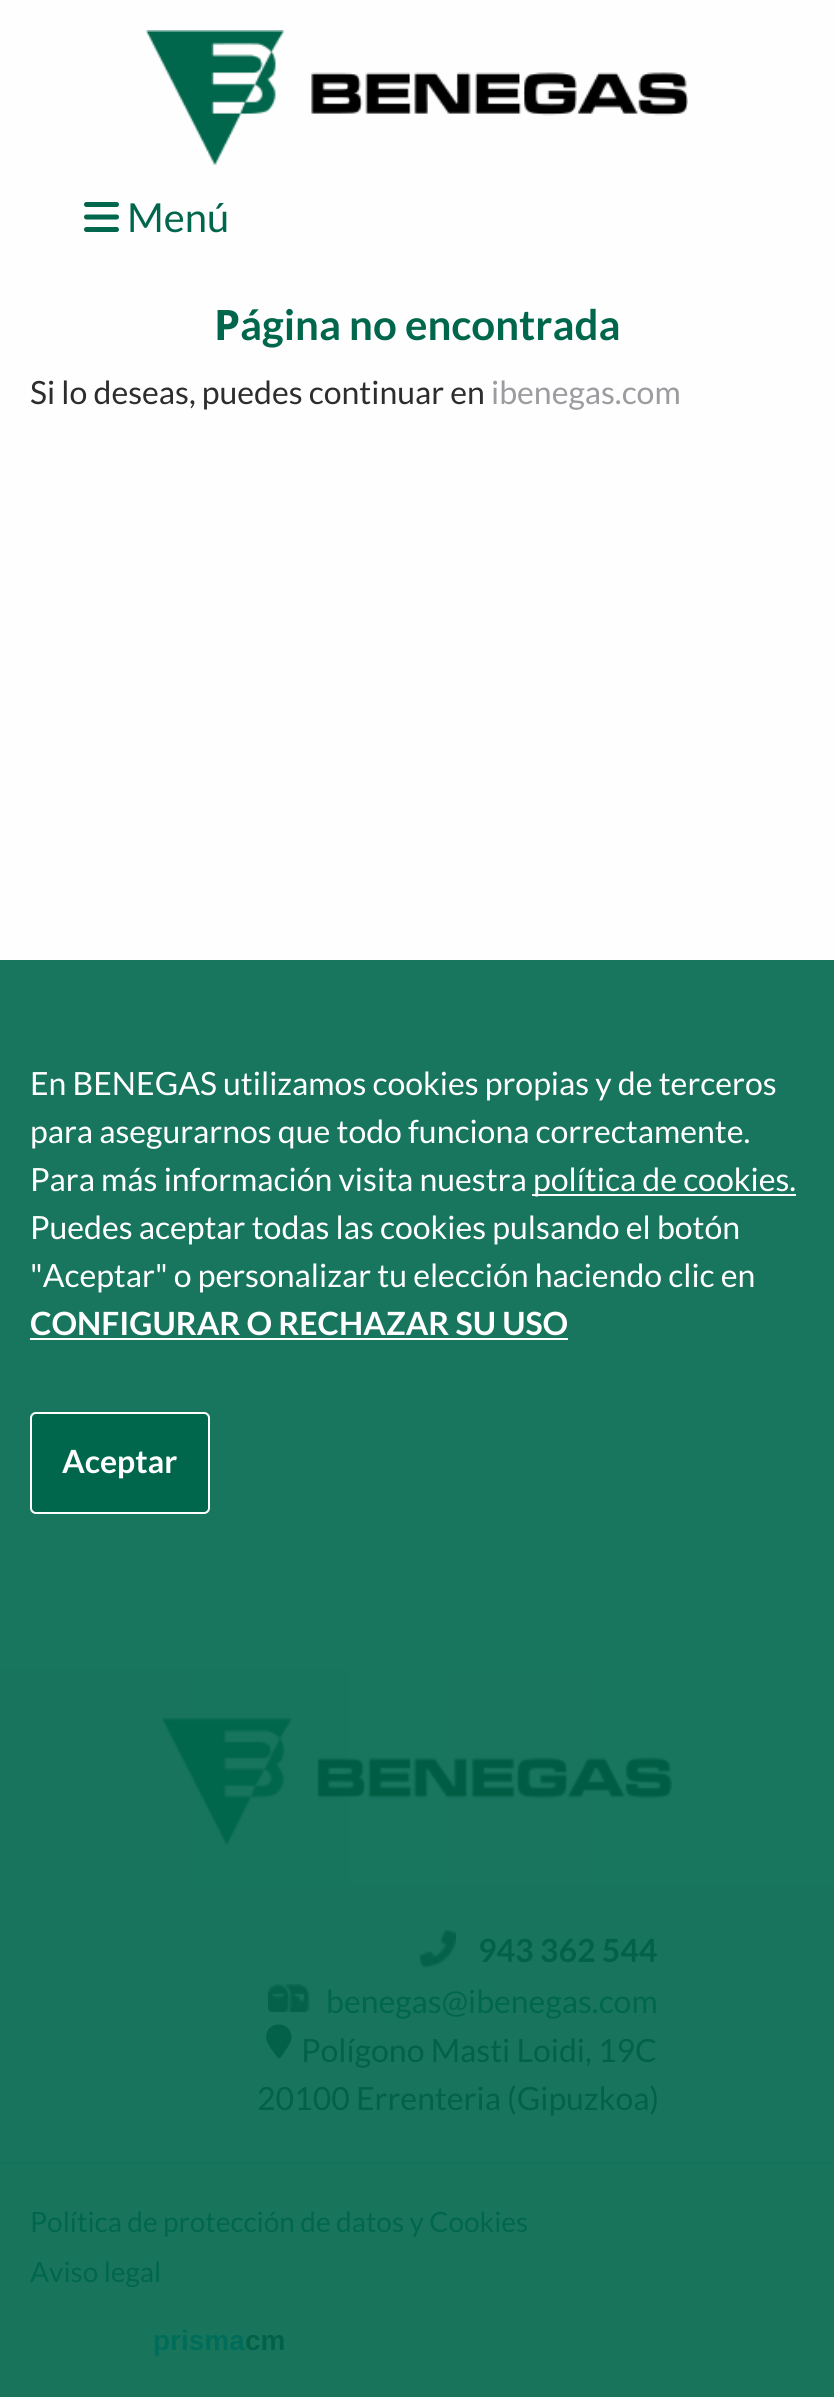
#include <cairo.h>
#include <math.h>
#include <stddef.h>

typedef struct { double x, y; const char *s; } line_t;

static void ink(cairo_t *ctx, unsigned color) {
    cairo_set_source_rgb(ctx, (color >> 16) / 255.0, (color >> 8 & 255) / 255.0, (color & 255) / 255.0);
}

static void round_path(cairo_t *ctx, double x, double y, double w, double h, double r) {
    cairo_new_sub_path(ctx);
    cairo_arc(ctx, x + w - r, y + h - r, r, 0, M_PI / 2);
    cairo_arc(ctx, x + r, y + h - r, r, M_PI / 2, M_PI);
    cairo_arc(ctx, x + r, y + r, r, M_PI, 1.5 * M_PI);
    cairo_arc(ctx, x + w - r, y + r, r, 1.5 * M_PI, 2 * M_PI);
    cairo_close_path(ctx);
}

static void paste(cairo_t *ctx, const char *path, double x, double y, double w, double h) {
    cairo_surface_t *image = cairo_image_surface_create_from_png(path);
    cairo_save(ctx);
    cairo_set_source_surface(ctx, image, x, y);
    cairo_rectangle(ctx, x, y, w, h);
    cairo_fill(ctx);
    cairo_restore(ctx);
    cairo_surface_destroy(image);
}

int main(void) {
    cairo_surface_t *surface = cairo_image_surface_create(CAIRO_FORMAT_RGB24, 834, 2397);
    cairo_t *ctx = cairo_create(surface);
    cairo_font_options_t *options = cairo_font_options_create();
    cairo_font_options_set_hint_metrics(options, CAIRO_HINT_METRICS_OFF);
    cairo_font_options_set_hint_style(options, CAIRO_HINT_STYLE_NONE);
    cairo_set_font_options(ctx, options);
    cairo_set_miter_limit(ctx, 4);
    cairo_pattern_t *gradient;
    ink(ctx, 0xFEFEFE);
    cairo_paint(ctx);
    paste(ctx, "media/1.png", 146, 30, 542, 136);
    paste(ctx, "media/2.png", 84, 202, 35, 30);
    cairo_select_font_face(ctx, "Lato", CAIRO_FONT_SLANT_NORMAL, CAIRO_FONT_WEIGHT_NORMAL);
    cairo_set_font_size(ctx, 40);
    ink(ctx, 0x00674C);
    cairo_move_to(ctx, 127, 232);
    cairo_show_text(ctx, "Menú");
    ink(ctx, 0x19765E);
    cairo_rectangle(ctx, 0, 960, 834, 708);
    cairo_fill(ctx);
    cairo_select_font_face(ctx, "Noto Sans", CAIRO_FONT_SLANT_NORMAL, CAIRO_FONT_WEIGHT_BOLD);
    cairo_set_font_size(ctx, 42);
    ink(ctx, 0x00674C);
    cairo_move_to(ctx, 214, 340);
    cairo_show_text(ctx, "P");
    cairo_select_font_face(ctx, "Lato", CAIRO_FONT_SLANT_NORMAL, CAIRO_FONT_WEIGHT_BOLD);
    cairo_move_to(ctx, 240, 340);
    cairo_show_text(ctx, "ágina no encontrada");
    cairo_select_font_face(ctx, "Lato", CAIRO_FONT_SLANT_NORMAL, CAIRO_FONT_WEIGHT_NORMAL);
    cairo_set_font_size(ctx, 32);
    ink(ctx, 0x2D2D2F);
    cairo_move_to(ctx, 30, 404);
    cairo_show_text(ctx, "Si lo deseas, puedes continuar en");
    ink(ctx, 0x9C9CA0);
    cairo_move_to(ctx, 491, 404);
    cairo_show_text(ctx, "ibenegas.com");
    ink(ctx, 0xFFFFFF);
    {
        static const line_t items[] = {
            {30, 1095, "En BENEGAS utilizamos cookies propias y de terceros"},
            {30, 1143, "para asegurarnos que todo funciona correctamente."},
            {30, 1191, "Para más información visita nuestra"},
        };
        for (size_t i = 0; i < sizeof items / sizeof *items; i++) {
            cairo_move_to(ctx, items[i].x, items[i].y);
            cairo_show_text(ctx, items[i].s);
        }
    }
    cairo_rectangle(ctx, 532, 1194, 264, 2);
    cairo_fill(ctx);
    {
        static const line_t items[] = {
            {533, 1191, "política de cookies."},
            {30, 1239, "Puedes aceptar todas las cookies pulsando el botón"},
            {30, 1287, "\"Aceptar\" o personalizar tu elección haciendo clic en"},
        };
        for (size_t i = 0; i < sizeof items / sizeof *items; i++) {
            cairo_move_to(ctx, items[i].x, items[i].y);
            cairo_show_text(ctx, items[i].s);
        }
    }
    cairo_select_font_face(ctx, "Lato", CAIRO_FONT_SLANT_NORMAL, CAIRO_FONT_WEIGHT_BOLD);
    cairo_move_to(ctx, 30, 1335);
    cairo_show_text(ctx, "CONFIGURAR O RECHAZAR SU USO");
    cairo_rectangle(ctx, 30, 1338, 538, 2);
    cairo_fill(ctx);
    ink(ctx, 0x00674C);
    round_path(ctx, 31, 1413, 178, 100, 5);
    cairo_fill_preserve(ctx);
    ink(ctx, 0xFFFFFF);
    cairo_stroke(ctx);
    cairo_move_to(ctx, 62, 1473);
    cairo_show_text(ctx, "Aceptar");
    gradient = cairo_pattern_create_linear(0, 1777, 834, 1777);
    cairo_pattern_add_color_stop_rgba(gradient, 0, 0.094, 0.455, 0.365, 1);
    cairo_pattern_add_color_stop_rgba(gradient, 1, 0.098, 0.463, 0.369, 1);
    cairo_set_source(ctx, gradient);
    cairo_pattern_destroy(gradient);
    cairo_rectangle(ctx, 0, 1668, 834, 218);
    cairo_fill(ctx);
    paste(ctx, "media/3.png", 162, 1718, 510, 128);
    ink(ctx, 0x18745D);
    cairo_rectangle(ctx, 0, 1886, 834, 276);
    cairo_fill(ctx);
    paste(ctx, "media/4.png", 420, 1930, 36, 38);
    ink(ctx, 0x046149);
    cairo_move_to(ctx, 478, 1962);
    cairo_show_text(ctx, "943 362 544");
    paste(ctx, "media/5.png", 268, 1984, 42, 28);
    cairo_select_font_face(ctx, "Lato", CAIRO_FONT_SLANT_NORMAL, CAIRO_FONT_WEIGHT_NORMAL);
    ink(ctx, 0x00674C);
    cairo_move_to(ctx, 326, 2013);
    cairo_show_text(ctx, "benegas@ibenegas.com");
    ink(ctx, 0x046149);
    cairo_new_path(ctx);
    cairo_move_to(ctx, 291.5, 2037);
    cairo_curve_to(ctx, 291.5, 2042, 288, 2046.5, 285.5, 2050.5);
    cairo_curve_to(ctx, 279, 2060, 279.5, 2061, 273, 2051.5);
    cairo_curve_to(ctx, 270, 2047.5, 266, 2042, 266, 2037);
    cairo_curve_to(ctx, 266, 2020.5, 291, 2020, 291.5, 2037);
    cairo_close_path(ctx);
    cairo_fill(ctx);
    cairo_move_to(ctx, 301, 2062);
    cairo_show_text(ctx, "Polígono Masti Loidi, 19C");
    cairo_move_to(ctx, 257, 2110);
    cairo_show_text(ctx, "20100 Errenteria (Gipuzkoa)");
    ink(ctx, 0x18755C);
    cairo_rectangle(ctx, 0, 2164, 834, 233);
    cairo_fill(ctx);
    ink(ctx, 0x15725A);
    cairo_rectangle(ctx, 0, 2162, 834, 2);
    cairo_fill(ctx);
    cairo_set_font_size(ctx, 28);
    ink(ctx, 0x00674C);
    cairo_move_to(ctx, 30, 2232);
    cairo_show_text(ctx, "Política de protección de datos y Cookies");
    cairo_move_to(ctx, 30, 2282);
    cairo_show_text(ctx, "Aviso legal");
    cairo_select_font_face(ctx, "Liberation Sans", CAIRO_FONT_SLANT_NORMAL, CAIRO_FONT_WEIGHT_BOLD);
    ink(ctx, 0x006D5B);
    cairo_move_to(ctx, 153, 2350);
    cairo_show_text(ctx, "prisma");
    ink(ctx, 0x046149);
    cairo_move_to(ctx, 245, 2350);
    cairo_show_text(ctx, "cm");
    cairo_surface_write_to_png(surface, "image.png");
    cairo_font_options_destroy(options);
    cairo_destroy(ctx);
    cairo_surface_destroy(surface);
    return 0;
}
